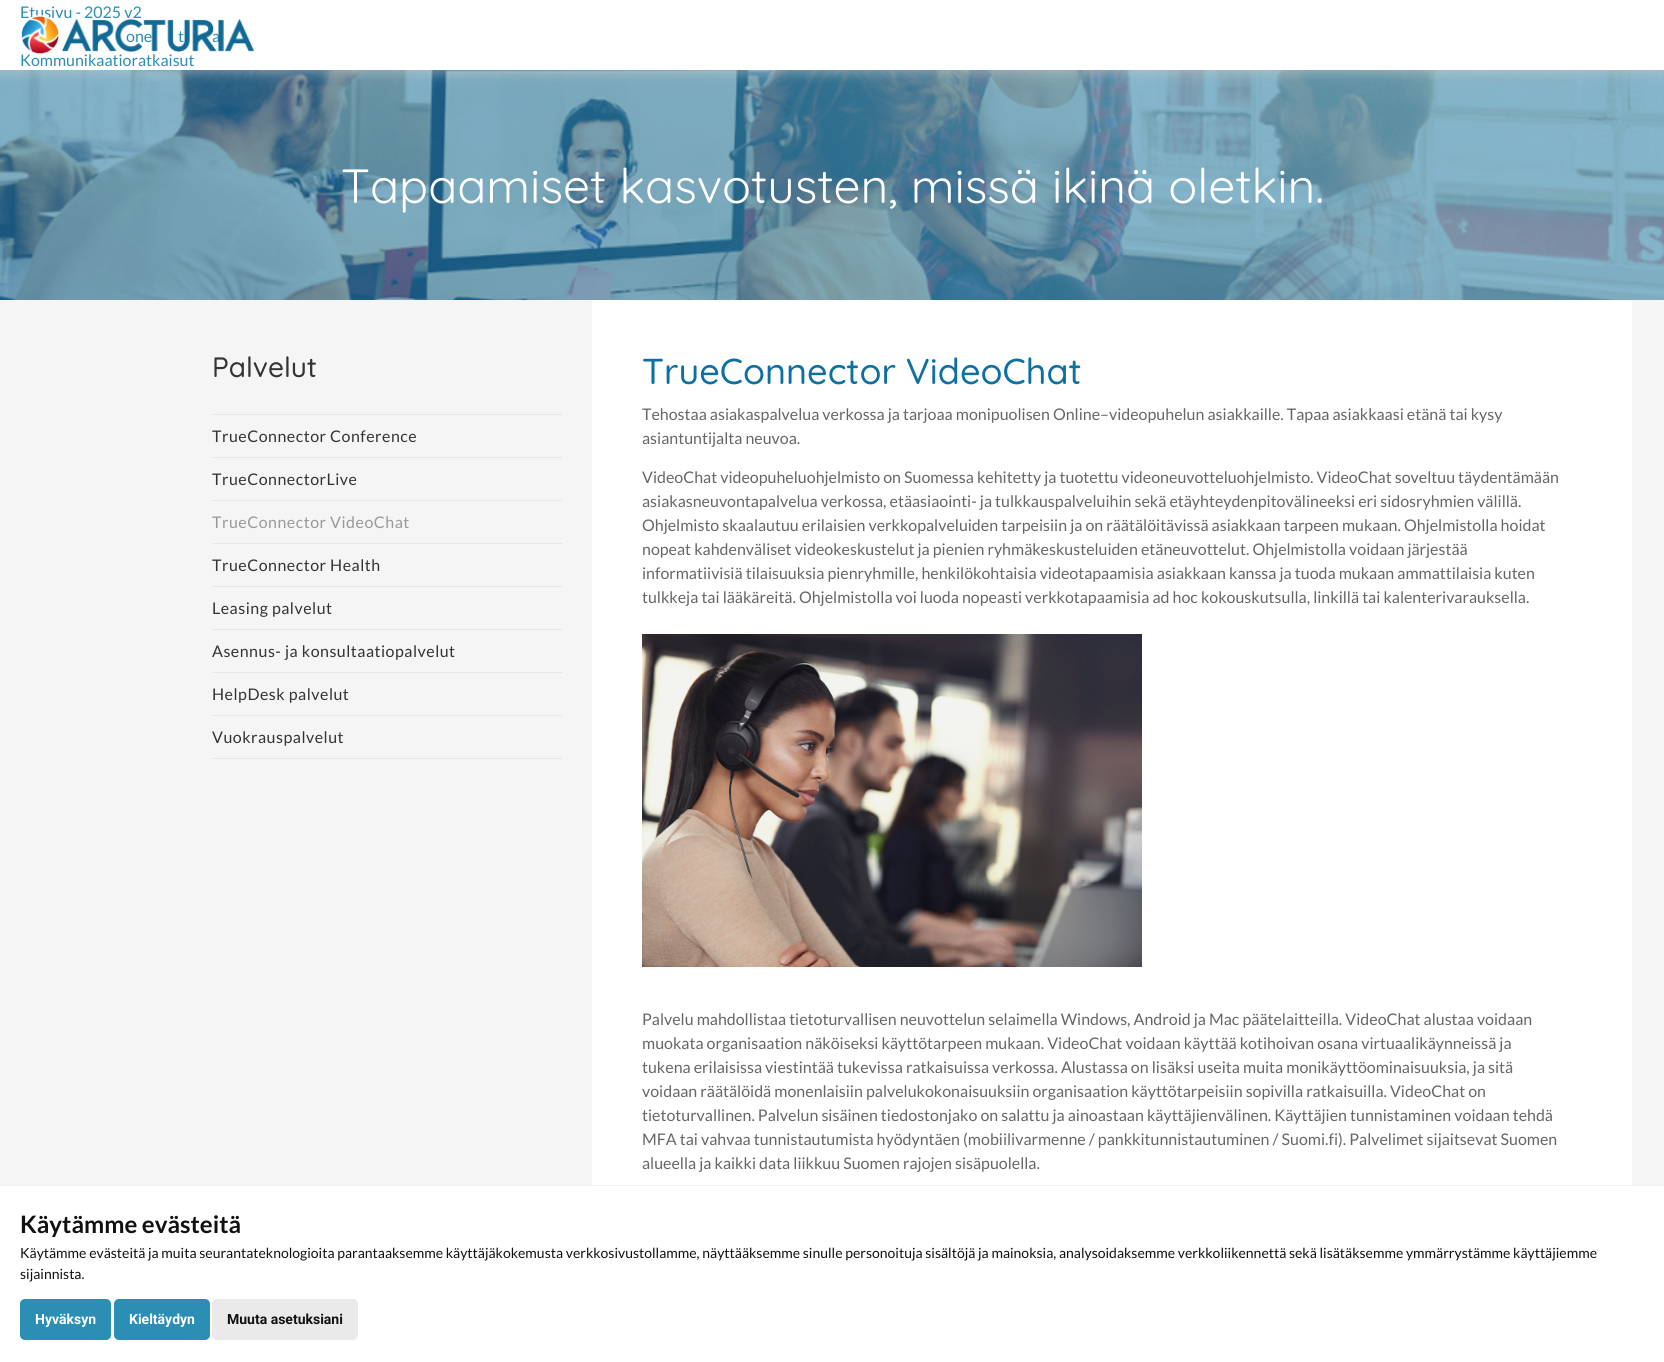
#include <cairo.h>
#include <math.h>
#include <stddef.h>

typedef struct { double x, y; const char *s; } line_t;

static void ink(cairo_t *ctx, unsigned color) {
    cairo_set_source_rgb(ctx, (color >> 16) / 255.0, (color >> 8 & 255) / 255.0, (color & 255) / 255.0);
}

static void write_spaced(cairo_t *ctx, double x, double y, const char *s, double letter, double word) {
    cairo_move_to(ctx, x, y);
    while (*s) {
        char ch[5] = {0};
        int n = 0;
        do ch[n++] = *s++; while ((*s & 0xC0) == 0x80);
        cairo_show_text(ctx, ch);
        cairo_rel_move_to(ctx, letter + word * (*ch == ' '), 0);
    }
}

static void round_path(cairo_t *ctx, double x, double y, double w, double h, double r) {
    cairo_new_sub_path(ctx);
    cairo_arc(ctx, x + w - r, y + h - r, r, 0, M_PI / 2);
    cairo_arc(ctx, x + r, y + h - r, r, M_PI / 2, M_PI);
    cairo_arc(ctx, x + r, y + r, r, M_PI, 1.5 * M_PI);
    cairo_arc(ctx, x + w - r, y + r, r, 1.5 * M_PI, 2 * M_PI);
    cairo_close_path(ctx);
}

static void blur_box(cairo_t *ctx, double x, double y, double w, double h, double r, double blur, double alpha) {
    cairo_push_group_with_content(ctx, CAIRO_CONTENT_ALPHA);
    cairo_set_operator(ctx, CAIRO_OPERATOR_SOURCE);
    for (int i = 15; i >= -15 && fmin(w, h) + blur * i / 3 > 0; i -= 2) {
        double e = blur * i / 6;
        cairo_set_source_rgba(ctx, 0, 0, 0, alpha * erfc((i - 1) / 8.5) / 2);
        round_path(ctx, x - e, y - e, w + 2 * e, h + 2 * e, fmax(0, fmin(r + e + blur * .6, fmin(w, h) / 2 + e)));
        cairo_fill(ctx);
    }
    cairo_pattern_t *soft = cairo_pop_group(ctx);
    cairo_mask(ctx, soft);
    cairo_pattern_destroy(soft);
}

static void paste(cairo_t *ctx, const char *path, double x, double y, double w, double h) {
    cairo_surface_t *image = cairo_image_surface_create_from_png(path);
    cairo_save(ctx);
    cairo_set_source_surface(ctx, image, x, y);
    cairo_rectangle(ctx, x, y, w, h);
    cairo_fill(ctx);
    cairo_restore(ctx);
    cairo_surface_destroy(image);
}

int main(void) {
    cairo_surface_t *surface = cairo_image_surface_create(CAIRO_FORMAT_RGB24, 1664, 1362);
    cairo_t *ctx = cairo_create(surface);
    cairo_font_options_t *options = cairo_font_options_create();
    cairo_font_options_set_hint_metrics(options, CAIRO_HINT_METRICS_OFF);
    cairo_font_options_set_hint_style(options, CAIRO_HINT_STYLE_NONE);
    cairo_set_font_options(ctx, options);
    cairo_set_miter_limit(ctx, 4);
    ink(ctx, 0xFFFFFF);
    cairo_paint(ctx);
    paste(ctx, "media/2.png", 0, 70, 1664, 230);
    ink(ctx, 0xCCCCCC);
    blur_box(ctx, 0, 5, 1664, 70, 0, 5, 0.4);
    ink(ctx, 0xFFFFFF);
    cairo_rectangle(ctx, 0, 0, 1664, 70);
    cairo_fill(ctx);
    cairo_select_font_face(ctx, "Lato", CAIRO_FONT_SLANT_NORMAL, CAIRO_FONT_WEIGHT_NORMAL);
    cairo_set_font_size(ctx, 16);
    ink(ctx, 0x2A8EB5);
    {
        static const line_t items[] = {
            {20, 18, "Etusivu - 2025 v2"},
            {126, 42, "one"},
            {178, 42, "t"},
            {212, 42, "a"},
            {20, 66, "Kommunikaatioratkaisut"},
        };
        for (size_t i = 0; i < sizeof items / sizeof *items; i++) {
            cairo_move_to(ctx, items[i].x, items[i].y);
            cairo_show_text(ctx, items[i].s);
        }
    }
    paste(ctx, "media/1.png", 21, 15, 233, 39);
    cairo_select_font_face(ctx, "Quicksand", CAIRO_FONT_SLANT_NORMAL, CAIRO_FONT_WEIGHT_NORMAL);
    cairo_set_font_size(ctx, 48);
    ink(ctx, 0xFFFFFF);
    cairo_move_to(ctx, 341, 203);
    cairo_show_text(ctx, "Tapaamiset kasvotusten, missä ikinä oletkin.");
    ink(ctx, 0xF5F5F5);
    cairo_rectangle(ctx, 0, 300, 1664, 885);
    cairo_fill(ctx);
    cairo_select_font_face(ctx, "Quicksand Medium", CAIRO_FONT_SLANT_NORMAL, CAIRO_FONT_WEIGHT_NORMAL);
    cairo_set_font_size(ctx, 28);
    ink(ctx, 0x333333);
    cairo_move_to(ctx, 212, 377);
    cairo_show_text(ctx, "Palvelut");
    ink(ctx, 0xE6E6E6);
    cairo_rectangle(ctx, 212, 414, 350, 1);
    cairo_fill(ctx);
    cairo_rectangle(ctx, 212, 457, 350, 1);
    cairo_fill(ctx);
    cairo_select_font_face(ctx, "Lato", CAIRO_FONT_SLANT_NORMAL, CAIRO_FONT_WEIGHT_NORMAL);
    cairo_set_font_size(ctx, 16);
    ink(ctx, 0x333333);
    write_spaced(ctx, 212, 442, "TrueConnector Conference", 0.5, 0);
    ink(ctx, 0xE6E6E6);
    cairo_rectangle(ctx, 212, 500, 350, 1);
    cairo_fill(ctx);
    ink(ctx, 0x333333);
    write_spaced(ctx, 212, 485, "TrueConnectorLive", 0.5, 0);
    ink(ctx, 0xE6E6E6);
    cairo_rectangle(ctx, 212, 543, 350, 1);
    cairo_fill(ctx);
    ink(ctx, 0x999999);
    write_spaced(ctx, 212, 528, "TrueConnector VideoChat", 0.5, 0);
    ink(ctx, 0xE6E6E6);
    cairo_rectangle(ctx, 212, 586, 350, 1);
    cairo_fill(ctx);
    ink(ctx, 0x333333);
    write_spaced(ctx, 212, 571, "TrueConnector Health", 0.5, 0);
    ink(ctx, 0xE6E6E6);
    cairo_rectangle(ctx, 212, 629, 350, 1);
    cairo_fill(ctx);
    ink(ctx, 0x333333);
    write_spaced(ctx, 212, 614, "Leasing palvelut", 0.5, 0);
    ink(ctx, 0xE6E6E6);
    cairo_rectangle(ctx, 212, 672, 350, 1);
    cairo_fill(ctx);
    ink(ctx, 0x333333);
    write_spaced(ctx, 212, 657, "Asennus- ja konsultaatiopalvelut", 0.5, 0);
    ink(ctx, 0xE6E6E6);
    cairo_rectangle(ctx, 212, 715, 350, 1);
    cairo_fill(ctx);
    ink(ctx, 0x333333);
    write_spaced(ctx, 212, 700, "HelpDesk palvelut", 0.5, 0);
    ink(ctx, 0xE6E6E6);
    cairo_rectangle(ctx, 212, 758, 350, 1);
    cairo_fill(ctx);
    ink(ctx, 0x333333);
    write_spaced(ctx, 212, 743, "Vuokrauspalvelut", 0.5, 0);
    ink(ctx, 0xFFFFFF);
    cairo_rectangle(ctx, 592, 300, 1040, 885);
    cairo_fill(ctx);
    cairo_select_font_face(ctx, "Quicksand Medium", CAIRO_FONT_SLANT_NORMAL, CAIRO_FONT_WEIGHT_NORMAL);
    cairo_set_font_size(ctx, 36);
    ink(ctx, 0x0E70A0);
    cairo_move_to(ctx, 642, 384);
    cairo_show_text(ctx, "TrueConnector VideoChat");
    cairo_select_font_face(ctx, "Lato", CAIRO_FONT_SLANT_NORMAL, CAIRO_FONT_WEIGHT_NORMAL);
    cairo_set_font_size(ctx, 16);
    ink(ctx, 0x666666);
    {
        static const line_t items[] = {
            {642, 420, "Tehostaa asiakaspalvelua verkossa ja tarjoaa monipuolisen Online–videopuhelun asiakkaille. Tapaa asiakkaasi etänä tai kysy"},
            {642, 444, "asiantuntijalta neuvoa."},
            {642, 483, "VideoChat videopuheluohjelmisto on Suomessa kehitetty ja tuotettu videoneuvotteluohjelmisto. VideoChat soveltuu täydentämään"},
            {642, 507, "asiakasneuvontapalvelua verkossa, etäasiaointi- ja tulkkauspalveluihin sekä etäyhteydenpitovälineeksi eri sidosryhmien välillä."},
            {642, 531, "Ohjelmisto skaalautuu erilaisien verkkopalveluiden tarpeisiin ja on räätälöitävissä asiakkaan tarpeen mukaan. Ohjelmistolla hoidat"},
            {642, 555, "nopeat kahdenväliset videokeskustelut ja pienien ryhmäkeskusteluiden etäneuvottelut. Ohjelmistolla voidaan järjestää"},
            {642, 579, "informatiivisiä tilaisuuksia pienryhmille, henkilökohtaisia videotapaamisia asiakkaan kanssa ja tuoda mukaan ammattilaisia kuten"},
            {642, 603, "tulkkeja tai lääkäreitä. Ohjelmistolla voi luoda nopeasti verkkotapaamisia ad hoc kokouskutsulla, linkillä tai kalenterivarauksella."},
        };
        for (size_t i = 0; i < sizeof items / sizeof *items; i++) {
            cairo_move_to(ctx, items[i].x, items[i].y);
            cairo_show_text(ctx, items[i].s);
        }
    }
    paste(ctx, "media/3.png", 642, 634, 500, 333);
    {
        static const line_t items[] = {
            {642, 1025, "Palvelu mahdollistaa tietoturvallisen neuvottelun selaimella Windows, Android ja Mac päätelaitteilla. VideoChat alustaa voidaan"},
            {642, 1049, "muokata organisaation näköiseksi käyttötarpeen mukaan. VideoChat voidaan käyttää kotihoivan osana virtuaalikäynneissä ja"},
            {642, 1073, "tukena erilaisissa viestintää tukevissa ratkaisuissa verkossa. Alustassa on lisäksi useita muita monikäyttöominaisuuksia, ja sitä"},
            {642, 1097, "voidaan räätälöidä monenlaisiin palvelukokonaisuuksiin organisaation käyttötarpeisiin sopivilla ratkaisuilla. VideoChat on"},
            {642, 1121, "tietoturvallinen. Palvelun sisäinen tiedostonjako on salattu ja ainoastaan käyttäjienvälinen. Käyttäjien tunnistaminen voidaan tehdä"},
            {642, 1145, "MFA tai vahvaa tunnistautumista hyödyntäen (mobiilivarmenne / pankkitunnistautuminen / Suomi.fi). Palvelimet sijaitsevat Suomen"},
            {642, 1169, "alueella ja kaikki data liikkuu Suomen rajojen sisäpuolella."},
        };
        for (size_t i = 0; i < sizeof items / sizeof *items; i++) {
            cairo_move_to(ctx, items[i].x, items[i].y);
            cairo_show_text(ctx, items[i].s);
        }
    }
    ink(ctx, 0xF2F2F2);
    cairo_rectangle(ctx, 0, 1185, 1664, 1);
    cairo_fill(ctx);
    cairo_select_font_face(ctx, "Lato", CAIRO_FONT_SLANT_NORMAL, CAIRO_FONT_WEIGHT_BOLD);
    cairo_set_font_size(ctx, 24);
    ink(ctx, 0x111111);
    cairo_move_to(ctx, 20, 1233);
    cairo_show_text(ctx, "Käytämme evästeitä");
    cairo_select_font_face(ctx, "Lato", CAIRO_FONT_SLANT_NORMAL, CAIRO_FONT_WEIGHT_NORMAL);
    cairo_set_font_size(ctx, 14);
    cairo_move_to(ctx, 20, 1258);
    cairo_show_text(ctx, "Käytämme evästeitä ja muita seurantateknologioita parantaaksemme käyttäjäkokemusta verkkosivustollamme, näyttääksemme sinulle personoituja sisältöjä ja mainoksia, analysoidaksemme verkkoliikennettä sekä lisätäksemme ymmärrystämme käyttäjiemme");
    cairo_move_to(ctx, 20, 1279);
    cairo_show_text(ctx, "sijainnista.");
    ink(ctx, 0x2A8EB5);
    round_path(ctx, 20, 1299, 91, 41, 5);
    cairo_fill(ctx);
    cairo_select_font_face(ctx, "Roboto", CAIRO_FONT_SLANT_NORMAL, CAIRO_FONT_WEIGHT_BOLD);
    ink(ctx, 0xFFFFFF);
    cairo_move_to(ctx, 35, 1324);
    cairo_show_text(ctx, "Hyväksyn");
    ink(ctx, 0x2A8EB5);
    round_path(ctx, 114, 1299, 96, 41, 5);
    cairo_fill(ctx);
    ink(ctx, 0xFFFFFF);
    cairo_move_to(ctx, 129, 1324);
    cairo_show_text(ctx, "Kieltäydyn");
    ink(ctx, 0xEAEAEA);
    round_path(ctx, 212, 1299, 146, 41, 5);
    cairo_fill(ctx);
    ink(ctx, 0x111111);
    cairo_move_to(ctx, 227, 1324);
    cairo_show_text(ctx, "Muuta asetuksiani");
    cairo_surface_write_to_png(surface, "image.png");
    cairo_font_options_destroy(options);
    cairo_destroy(ctx);
    cairo_surface_destroy(surface);
    return 0;
}
